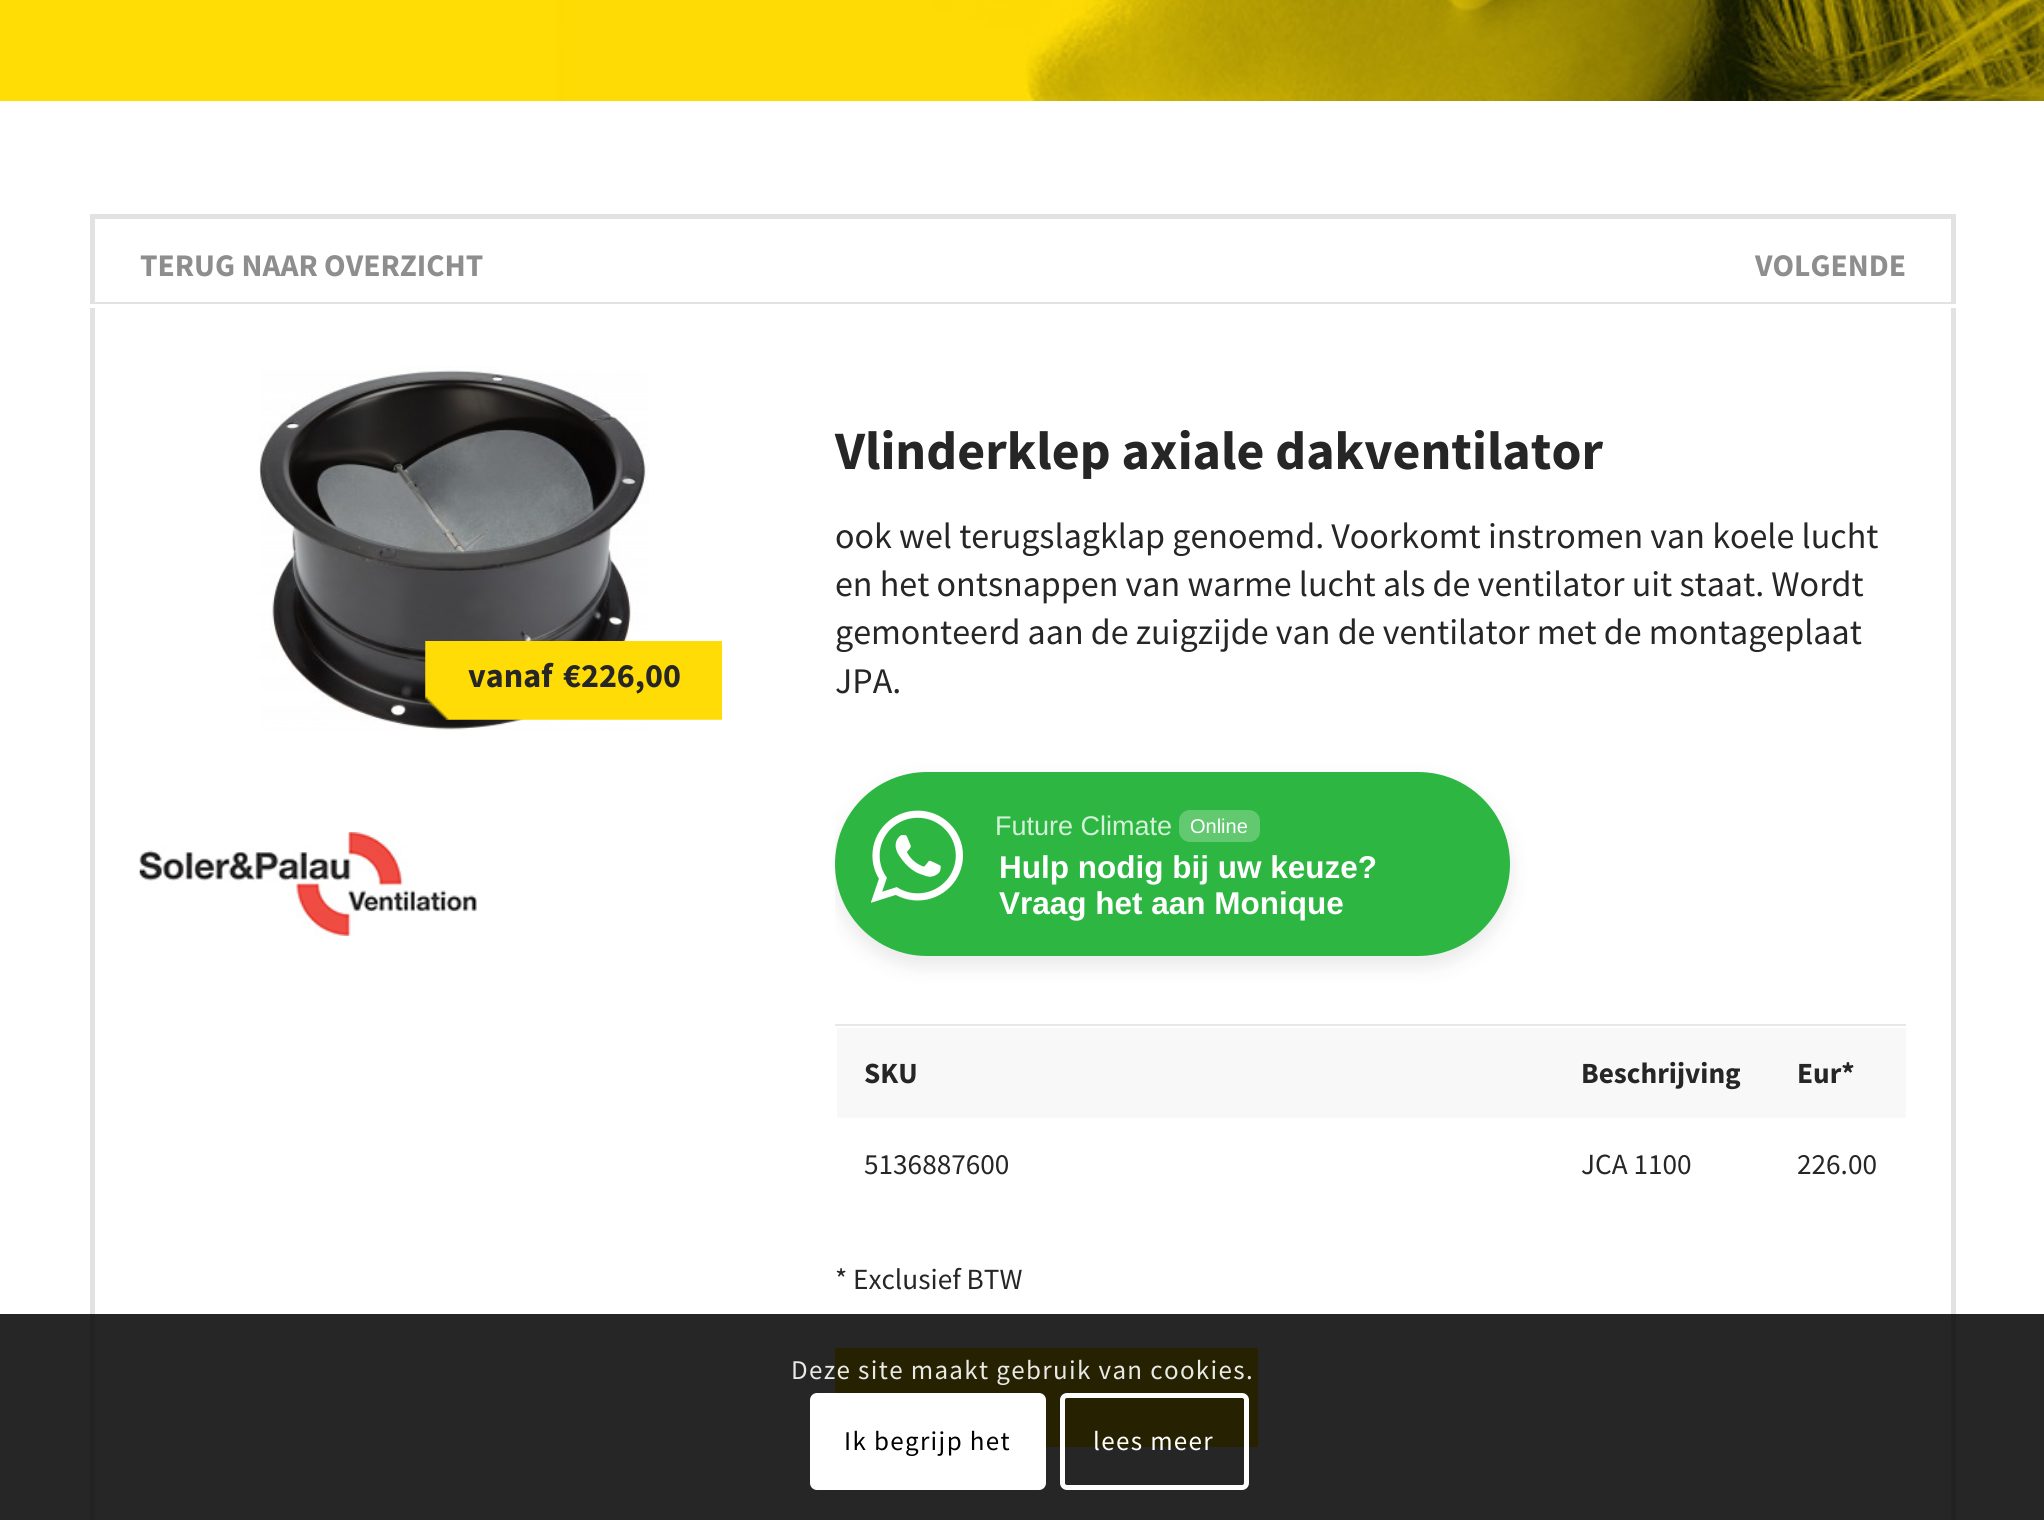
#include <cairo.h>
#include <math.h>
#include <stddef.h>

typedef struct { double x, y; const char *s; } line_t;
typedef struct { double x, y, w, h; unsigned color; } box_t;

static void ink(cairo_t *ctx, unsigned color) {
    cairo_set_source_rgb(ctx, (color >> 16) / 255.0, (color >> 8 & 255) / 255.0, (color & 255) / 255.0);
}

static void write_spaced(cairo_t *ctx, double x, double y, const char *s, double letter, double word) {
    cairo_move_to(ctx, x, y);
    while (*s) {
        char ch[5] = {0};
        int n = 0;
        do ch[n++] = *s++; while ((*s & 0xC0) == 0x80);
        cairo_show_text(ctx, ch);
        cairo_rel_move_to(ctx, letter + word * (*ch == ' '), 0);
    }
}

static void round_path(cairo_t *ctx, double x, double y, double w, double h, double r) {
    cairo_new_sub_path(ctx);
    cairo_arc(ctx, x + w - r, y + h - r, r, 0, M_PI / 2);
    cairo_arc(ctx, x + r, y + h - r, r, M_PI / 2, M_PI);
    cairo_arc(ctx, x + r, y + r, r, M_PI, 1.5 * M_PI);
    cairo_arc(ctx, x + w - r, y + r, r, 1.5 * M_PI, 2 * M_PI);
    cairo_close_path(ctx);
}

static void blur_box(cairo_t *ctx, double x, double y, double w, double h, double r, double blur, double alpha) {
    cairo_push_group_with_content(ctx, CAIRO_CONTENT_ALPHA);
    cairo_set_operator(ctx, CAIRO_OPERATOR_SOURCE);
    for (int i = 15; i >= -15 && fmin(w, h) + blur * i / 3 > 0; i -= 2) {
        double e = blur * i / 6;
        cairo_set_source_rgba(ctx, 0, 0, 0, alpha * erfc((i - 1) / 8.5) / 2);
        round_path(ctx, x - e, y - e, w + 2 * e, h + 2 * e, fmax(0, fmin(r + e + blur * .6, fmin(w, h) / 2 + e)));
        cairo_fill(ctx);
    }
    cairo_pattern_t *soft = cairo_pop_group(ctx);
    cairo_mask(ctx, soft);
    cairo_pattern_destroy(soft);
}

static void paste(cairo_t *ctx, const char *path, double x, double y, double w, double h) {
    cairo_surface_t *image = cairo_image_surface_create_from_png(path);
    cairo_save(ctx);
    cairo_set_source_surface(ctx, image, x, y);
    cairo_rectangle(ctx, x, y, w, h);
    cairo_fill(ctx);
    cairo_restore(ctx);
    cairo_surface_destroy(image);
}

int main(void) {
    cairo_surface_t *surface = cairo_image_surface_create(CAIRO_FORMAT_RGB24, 2044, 1520);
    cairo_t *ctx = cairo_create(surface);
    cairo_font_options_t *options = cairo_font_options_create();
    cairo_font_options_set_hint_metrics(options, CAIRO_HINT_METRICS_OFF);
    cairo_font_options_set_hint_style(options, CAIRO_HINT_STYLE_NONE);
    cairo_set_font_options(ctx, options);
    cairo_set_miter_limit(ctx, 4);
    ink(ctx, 0xFFFFFF);
    cairo_paint(ctx);
    ink(ctx, 0x262626);
    cairo_rectangle(ctx, 0, 1314, 2044, 206);
    cairo_fill(ctx);
    paste(ctx, "media/1.png", 0, 0, 2044, 101);
    {
        static const box_t items[] = {
            {90, 214, 1865, 5, 0xE2E2E1},
            {1951, 214, 5, 90, 0xE2E2E1},
            {90, 302, 1865, 2, 0xE2E2E1},
            {90, 214, 5, 90, 0xE2E2E1},
        };
        for (size_t i = 0; i < sizeof items / sizeof *items; i++) {
            ink(ctx, items[i].color);
            cairo_rectangle(ctx, items[i].x, items[i].y, items[i].w, items[i].h);
            cairo_fill(ctx);
        }
    }
    cairo_select_font_face(ctx, "Source Sans Pro", CAIRO_FONT_SLANT_NORMAL, CAIRO_FONT_WEIGHT_BOLD);
    cairo_set_font_size(ctx, 31.5);
    ink(ctx, 0x8E8E8E);
    cairo_move_to(ctx, 140, 276);
    cairo_show_text(ctx, "TERUG NAAR OVERZICHT");
    cairo_move_to(ctx, 1755, 276);
    cairo_show_text(ctx, "VOLGENDE");
    {
        static const box_t items[] = {
            {1951, 308, 5, 1006, 0xE2E2E1},
            {1951, 1314, 5, 206, 0x222222},
            {90, 308, 5, 1006, 0xE2E2E1},
            {90, 1314, 5, 206, 0x222222},
        };
        for (size_t i = 0; i < sizeof items / sizeof *items; i++) {
            ink(ctx, items[i].color);
            cairo_rectangle(ctx, items[i].x, items[i].y, items[i].w, items[i].h);
            cairo_fill(ctx);
        }
    }
    paste(ctx, "media/2.png", 259, 366, 390, 364);
    paste(ctx, "media/3.png", 425, 641, 298, 79);
    cairo_set_font_size(ctx, 34);
    ink(ctx, 0x262626);
    cairo_move_to(ctx, 468, 687);
    cairo_show_text(ctx, "vanaf");
    cairo_move_to(ctx, 563, 687);
    cairo_show_text(ctx, "€226,00");
    paste(ctx, "media/4.png", 139, 832, 338, 104);
    ink(ctx, 0xE8E8E8);
    cairo_rectangle(ctx, 835, 1024, 1071, 2);
    cairo_fill(ctx);
    cairo_set_font_size(ctx, 54);
    ink(ctx, 0x262626);
    cairo_move_to(ctx, 835, 469);
    cairo_show_text(ctx, "Vlinderklep axiale dakventilator");
    cairo_select_font_face(ctx, "Source Sans Pro", CAIRO_FONT_SLANT_NORMAL, CAIRO_FONT_WEIGHT_NORMAL);
    cairo_set_font_size(ctx, 36);
    {
        static const line_t items[] = {
            {835, 548, "ook wel terugslagklap genoemd. Voorkomt instromen van koele lucht"},
            {835, 596, "en het ontsnappen van warme lucht als de ventilator uit staat. Wordt"},
            {835, 644, "gemonteerd aan de zuigzijde van de ventilator met de montageplaat"},
            {835, 693, "JPA."},
        };
        for (size_t i = 0; i < sizeof items / sizeof *items; i++) {
            cairo_move_to(ctx, items[i].x, items[i].y);
            cairo_show_text(ctx, items[i].s);
        }
    }
    cairo_save(ctx);
    cairo_rectangle(ctx, 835, 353, 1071, 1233);
    cairo_clip(ctx);
    ink(ctx, 0x202025);
    blur_box(ctx, 833, 779, 679, 189, 94.5, 9, 0.09);
    cairo_restore(ctx);
    ink(ctx, 0x2DB742);
    round_path(ctx, 835, 772, 675, 184, 92);
    cairo_fill(ctx);
    paste(ctx, "media/5.png", 871, 810, 92, 93);
    cairo_select_font_face(ctx, "Liberation Sans", CAIRO_FONT_SLANT_NORMAL, CAIRO_FONT_WEIGHT_NORMAL);
    cairo_set_font_size(ctx, 27);
    ink(ctx, 0xD5F1D9);
    cairo_move_to(ctx, 995, 835);
    cairo_show_text(ctx, "Future Climate");
    ink(ctx, 0x62C971);
    round_path(ctx, 1179, 810, 81, 32, 11);
    cairo_fill(ctx);
    cairo_set_font_size(ctx, 20);
    ink(ctx, 0xFFFFFF);
    cairo_move_to(ctx, 1190, 833);
    cairo_show_text(ctx, "Online");
    cairo_select_font_face(ctx, "Liberation Sans", CAIRO_FONT_SLANT_NORMAL, CAIRO_FONT_WEIGHT_BOLD);
    cairo_set_font_size(ctx, 31.5);
    cairo_move_to(ctx, 999, 878);
    cairo_show_text(ctx, "Hulp nodig bij uw keuze?");
    cairo_move_to(ctx, 999, 914);
    cairo_show_text(ctx, "Vraag het aan Monique");
    ink(ctx, 0xF8F8F8);
    cairo_rectangle(ctx, 837, 1028, 1069, 90);
    cairo_fill(ctx);
    cairo_select_font_face(ctx, "Source Sans Pro", CAIRO_FONT_SLANT_NORMAL, CAIRO_FONT_WEIGHT_BOLD);
    cairo_set_font_size(ctx, 29.25);
    ink(ctx, 0x262626);
    {
        static const line_t items[] = {
            {864, 1083, "SKU"},
            {1581, 1083, "Beschrijving"},
            {1797, 1083, "Eur*"},
        };
        for (size_t i = 0; i < sizeof items / sizeof *items; i++) {
            cairo_move_to(ctx, items[i].x, items[i].y);
            cairo_show_text(ctx, items[i].s);
        }
    }
    cairo_select_font_face(ctx, "Source Sans Pro", CAIRO_FONT_SLANT_NORMAL, CAIRO_FONT_WEIGHT_NORMAL);
    {
        static const line_t items[] = {
            {864, 1174, "5136887600"},
            {1581, 1174, "JCA 1100"},
            {1797, 1174, "226.00"},
            {835, 1289, "* Exclusief BTW"},
        };
        for (size_t i = 0; i < sizeof items / sizeof *items; i++) {
            cairo_move_to(ctx, items[i].x, items[i].y);
            cairo_show_text(ctx, items[i].s);
        }
    }
    ink(ctx, 0x262100);
    cairo_rectangle(ctx, 835, 1348, 423, 99);
    cairo_fill(ctx);
    cairo_set_font_size(ctx, 27);
    ink(ctx, 0xE9E9E6);
    write_spaced(ctx, 791, 1379, "Deze site maakt gebruik van cookies.", 1.35, 0);
    ink(ctx, 0xFFFFFF);
    round_path(ctx, 810, 1393, 236, 97, 7);
    cairo_fill(ctx);
    ink(ctx, 0x000000);
    write_spaced(ctx, 844, 1450, "Ik begrijp het", 1.35, 0);
    round_path(ctx, 1062.5, 1395.5, 184, 92, 4.5);
    ink(ctx, 0xFFFFFF);
    cairo_set_line_width(ctx, 5);
    cairo_stroke(ctx);
    write_spaced(ctx, 1093, 1450, "lees meer", 1.35, 0);
    cairo_surface_write_to_png(surface, "image.png");
    cairo_font_options_destroy(options);
    cairo_destroy(ctx);
    cairo_surface_destroy(surface);
    return 0;
}
